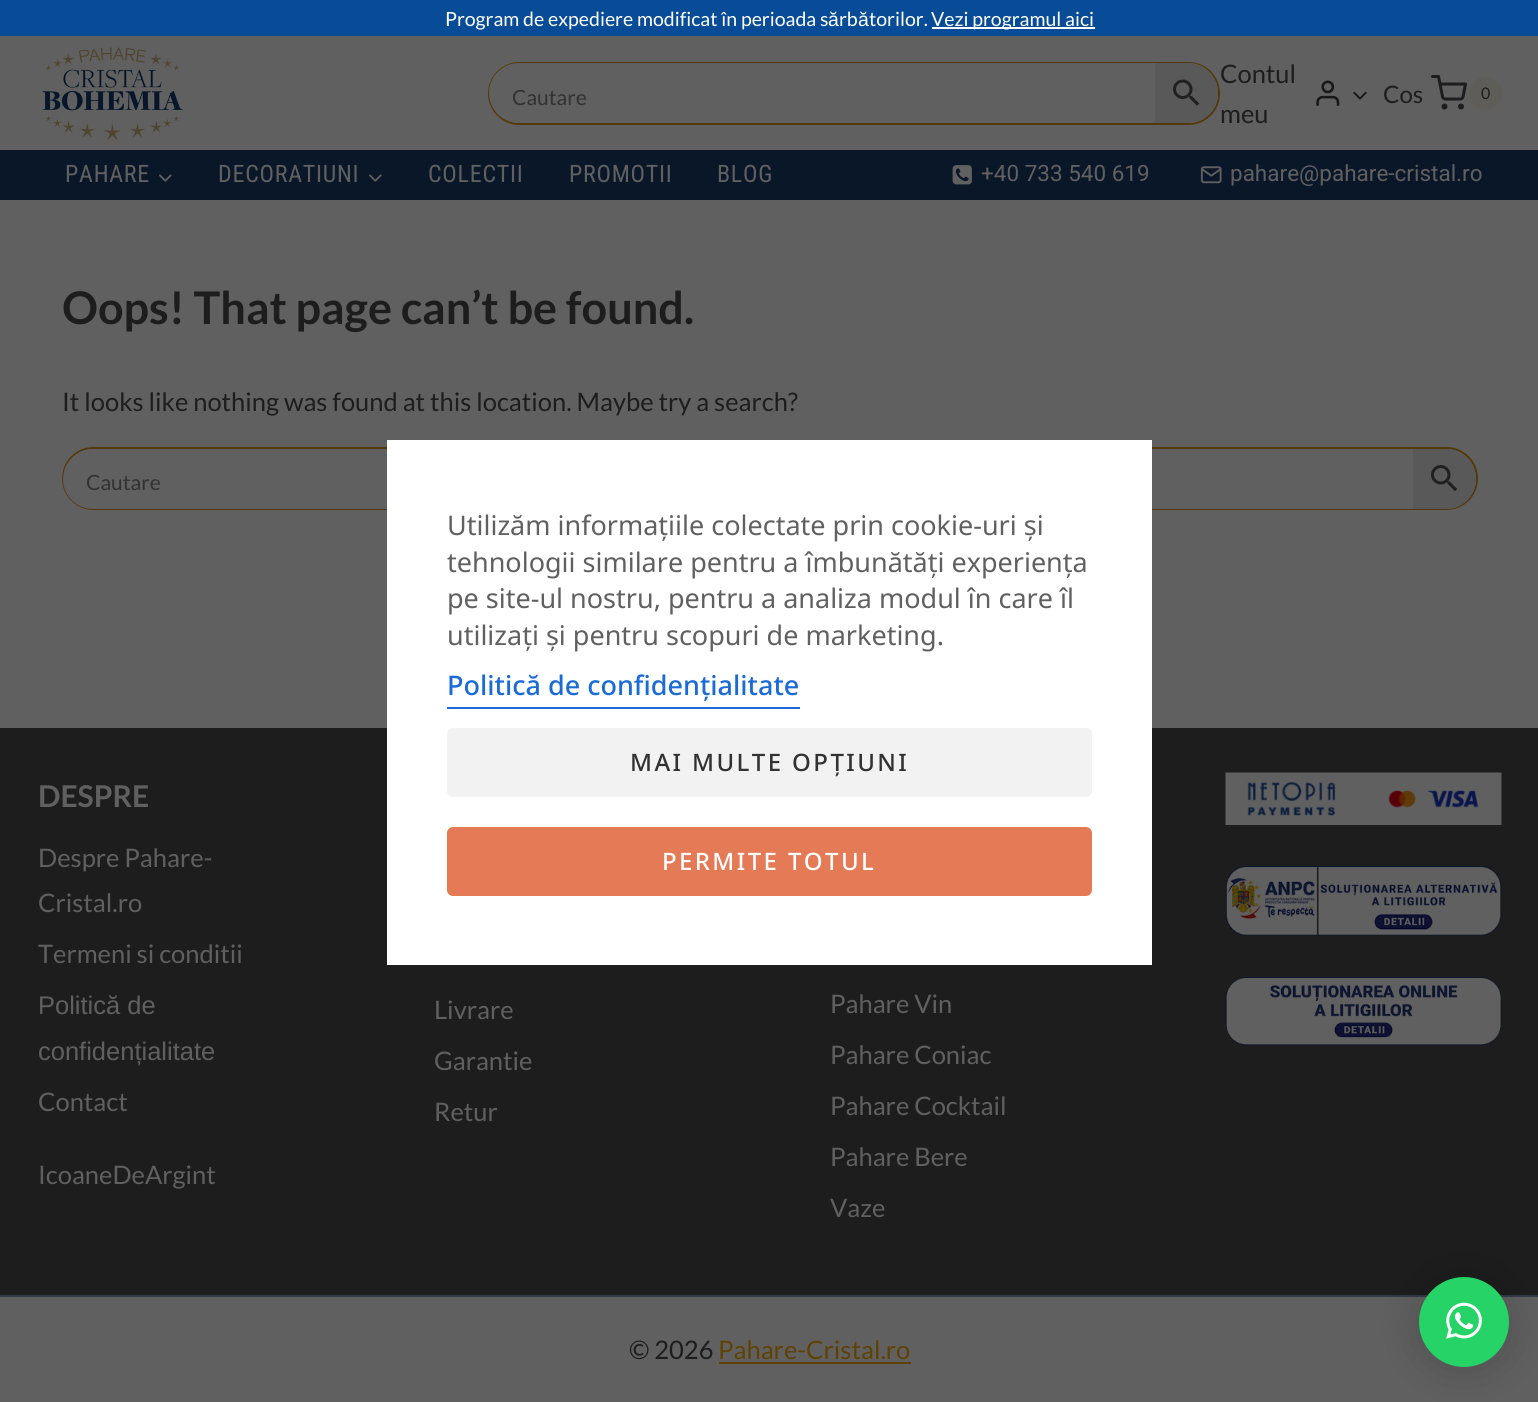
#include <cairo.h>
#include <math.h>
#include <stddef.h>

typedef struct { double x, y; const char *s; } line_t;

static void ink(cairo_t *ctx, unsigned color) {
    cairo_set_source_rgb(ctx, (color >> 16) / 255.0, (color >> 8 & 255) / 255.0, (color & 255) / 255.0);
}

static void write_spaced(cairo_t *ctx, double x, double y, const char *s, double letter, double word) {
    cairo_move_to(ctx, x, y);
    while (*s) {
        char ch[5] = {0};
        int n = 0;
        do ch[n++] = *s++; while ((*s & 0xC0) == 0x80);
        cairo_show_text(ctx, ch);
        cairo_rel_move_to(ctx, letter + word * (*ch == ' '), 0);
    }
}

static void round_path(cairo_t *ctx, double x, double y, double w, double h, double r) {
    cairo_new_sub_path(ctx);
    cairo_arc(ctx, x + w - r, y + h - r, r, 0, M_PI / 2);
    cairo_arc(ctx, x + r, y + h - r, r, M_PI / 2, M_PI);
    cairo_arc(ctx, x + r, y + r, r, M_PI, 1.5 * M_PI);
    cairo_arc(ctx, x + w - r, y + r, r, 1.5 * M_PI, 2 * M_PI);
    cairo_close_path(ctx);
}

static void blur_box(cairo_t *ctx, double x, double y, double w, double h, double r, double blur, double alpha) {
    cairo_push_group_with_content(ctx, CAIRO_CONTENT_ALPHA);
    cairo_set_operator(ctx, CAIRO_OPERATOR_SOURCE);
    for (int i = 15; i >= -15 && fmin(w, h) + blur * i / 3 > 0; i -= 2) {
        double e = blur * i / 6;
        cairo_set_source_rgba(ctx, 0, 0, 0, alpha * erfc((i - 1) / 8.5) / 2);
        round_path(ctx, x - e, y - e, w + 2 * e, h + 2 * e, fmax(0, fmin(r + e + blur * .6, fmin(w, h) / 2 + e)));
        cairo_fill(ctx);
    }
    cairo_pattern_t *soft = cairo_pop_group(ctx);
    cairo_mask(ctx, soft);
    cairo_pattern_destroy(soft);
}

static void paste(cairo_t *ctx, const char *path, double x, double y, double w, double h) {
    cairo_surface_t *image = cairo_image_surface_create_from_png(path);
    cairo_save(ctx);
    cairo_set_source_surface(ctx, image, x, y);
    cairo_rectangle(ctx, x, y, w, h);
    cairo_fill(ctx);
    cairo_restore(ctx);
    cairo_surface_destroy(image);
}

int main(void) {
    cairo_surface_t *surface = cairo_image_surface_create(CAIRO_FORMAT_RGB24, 1538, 1402);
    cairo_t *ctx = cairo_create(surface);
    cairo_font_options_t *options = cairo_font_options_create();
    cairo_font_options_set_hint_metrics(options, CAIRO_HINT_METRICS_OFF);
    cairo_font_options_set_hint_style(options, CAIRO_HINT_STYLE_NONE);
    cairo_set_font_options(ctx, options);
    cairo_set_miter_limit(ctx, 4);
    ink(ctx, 0x606060);
    cairo_paint(ctx);
    ink(ctx, 0x084C97);
    cairo_rectangle(ctx, 0, 0, 1538, 36);
    cairo_fill(ctx);
    cairo_select_font_face(ctx, "Lato", CAIRO_FONT_SLANT_NORMAL, CAIRO_FONT_WEIGHT_NORMAL);
    cairo_set_font_size(ctx, 19.5);
    ink(ctx, 0xFFFFFF);
    cairo_move_to(ctx, 445, 26);
    cairo_show_text(ctx, "Program de expediere modificat în perioada s");
    cairo_select_font_face(ctx, "Liberation Sans", CAIRO_FONT_SLANT_NORMAL, CAIRO_FONT_WEIGHT_NORMAL);
    cairo_move_to(ctx, 828, 26);
    cairo_show_text(ctx, "ă");
    cairo_select_font_face(ctx, "Lato", CAIRO_FONT_SLANT_NORMAL, CAIRO_FONT_WEIGHT_NORMAL);
    cairo_move_to(ctx, 839, 26);
    cairo_show_text(ctx, "rb");
    cairo_select_font_face(ctx, "Liberation Sans", CAIRO_FONT_SLANT_NORMAL, CAIRO_FONT_WEIGHT_NORMAL);
    cairo_move_to(ctx, 858, 26);
    cairo_show_text(ctx, "ă");
    cairo_select_font_face(ctx, "Lato", CAIRO_FONT_SLANT_NORMAL, CAIRO_FONT_WEIGHT_NORMAL);
    cairo_move_to(ctx, 869, 26);
    cairo_show_text(ctx, "torilor.");
    cairo_rectangle(ctx, 932, 27, 163, 2);
    cairo_fill(ctx);
    cairo_move_to(ctx, 931, 26);
    cairo_show_text(ctx, "Vezi programul aici");
    paste(ctx, "media/1.png", 42, 47, 141, 93);
    round_path(ctx, 489, 63, 730, 61, 30.5);
    ink(ctx, 0x533908);
    cairo_stroke(ctx);
    ink(ctx, 0x606060);
    round_path(ctx, 489, 63, 729, 60, 30);
    cairo_fill(ctx);
    cairo_set_font_size(ctx, 21);
    ink(ctx, 0x323232);
    cairo_move_to(ctx, 512, 105);
    cairo_show_text(ctx, "Cautare");
    ink(ctx, 0x595959);
    cairo_new_path(ctx);
    cairo_move_to(ctx, 1155, 63);
    cairo_line_to(ctx, 1188, 63);
    cairo_curve_to(ctx, 1204.5, 63, 1218, 76.5, 1218, 93);
    cairo_curve_to(ctx, 1218, 109.5, 1204.5, 123, 1188, 123);
    cairo_line_to(ctx, 1155, 123);
    cairo_close_path(ctx);
    cairo_fill(ctx);
    paste(ctx, "media/2.png", 1173, 79, 27, 27);
    cairo_set_font_size(ctx, 25.5);
    ink(ctx, 0x1D1D1D);
    cairo_move_to(ctx, 1220, 83);
    cairo_show_text(ctx, "Contul");
    cairo_move_to(ctx, 1220, 123);
    cairo_show_text(ctx, "meu");
    paste(ctx, "media/3.png", 1316, 80, 24, 26);
    paste(ctx, "media/4.png", 1353, 91, 14, 9);
    cairo_set_font_size(ctx, 24);
    cairo_move_to(ctx, 1383, 103);
    cairo_show_text(ctx, "Cos");
    paste(ctx, "media/5.png", 1431, 75, 36, 35);
    ink(ctx, 0x5F5D57);
    cairo_arc(ctx, 1485.5, 93.5, 16.5, 0, 2 * M_PI);
    cairo_fill(ctx);
    cairo_set_font_size(ctx, 16);
    ink(ctx, 0x1D1D1D);
    cairo_move_to(ctx, 1481, 99);
    cairo_show_text(ctx, "0");
    ink(ctx, 0x0A1729);
    cairo_rectangle(ctx, 0, 150, 1538, 50);
    cairo_fill(ctx);
    cairo_select_font_face(ctx, "Roboto Condensed", CAIRO_FONT_SLANT_NORMAL, CAIRO_FONT_WEIGHT_NORMAL);
    cairo_set_font_size(ctx, 24);
    ink(ctx, 0x606060);
    write_spaced(ctx, 65, 182, "PAHARE", 0.75, 0);
    paste(ctx, "media/6.png", 159, 174, 13, 8);
    write_spaced(ctx, 218, 182, "DECORATIUNI", 0.75, 0);
    paste(ctx, "media/6.png", 369, 174, 13, 8);
    {
        static const line_t items[] = {
            {428, 182, "COLECTII"},
            {569, 182, "PROMOTII"},
            {717, 182, "BLOG"},
        };
        for (size_t i = 0; i < sizeof items / sizeof *items; i++) {
            write_spaced(ctx, items[i].x, items[i].y, items[i].s, 0.75, 0);
        }
    }
    paste(ctx, "media/7.png", 952, 165, 20, 20);
    cairo_select_font_face(ctx, "Roboto", CAIRO_FONT_SLANT_NORMAL, CAIRO_FONT_WEIGHT_NORMAL);
    cairo_set_font_size(ctx, 22.5);
    cairo_move_to(ctx, 981, 181);
    cairo_show_text(ctx, "+40 733 540 619");
    paste(ctx, "media/8.png", 1200, 166, 22, 18);
    cairo_move_to(ctx, 1230, 181);
    cairo_show_text(ctx, "pahare@pahare-cristal.ro");
    cairo_select_font_face(ctx, "Lato", CAIRO_FONT_SLANT_NORMAL, CAIRO_FONT_WEIGHT_BOLD);
    cairo_set_font_size(ctx, 45);
    ink(ctx, 0x1D1D1D);
    cairo_move_to(ctx, 62, 324);
    cairo_show_text(ctx, "Oops! That page can’t be found.");
    cairo_select_font_face(ctx, "Lato", CAIRO_FONT_SLANT_NORMAL, CAIRO_FONT_WEIGHT_NORMAL);
    cairo_set_font_size(ctx, 25.5);
    cairo_move_to(ctx, 62, 411);
    cairo_show_text(ctx, "It looks like nothing was found at this location. Maybe try a search?");
    round_path(ctx, 63, 448, 1414, 61, 30.5);
    ink(ctx, 0x533908);
    cairo_stroke(ctx);
    ink(ctx, 0x606060);
    round_path(ctx, 63, 449, 1413, 60, 30);
    cairo_fill(ctx);
    cairo_set_font_size(ctx, 21);
    ink(ctx, 0x323232);
    cairo_move_to(ctx, 86, 490);
    cairo_show_text(ctx, "Cautare");
    ink(ctx, 0x595959);
    cairo_new_path(ctx);
    cairo_move_to(ctx, 1413, 449);
    cairo_line_to(ctx, 1446, 449);
    cairo_curve_to(ctx, 1462.5, 449, 1476, 462.5, 1476, 479);
    cairo_curve_to(ctx, 1476, 495.5, 1462.5, 509, 1446, 509);
    cairo_line_to(ctx, 1413, 509);
    cairo_close_path(ctx);
    cairo_fill(ctx);
    paste(ctx, "media/9.png", 1431, 465, 27, 27);
    ink(ctx, 0x1D1D1D);
    cairo_rectangle(ctx, 0, 728, 1538, 567);
    cairo_fill(ctx);
    cairo_select_font_face(ctx, "Lato", CAIRO_FONT_SLANT_NORMAL, CAIRO_FONT_WEIGHT_BOLD);
    cairo_set_font_size(ctx, 30);
    ink(ctx, 0x606060);
    cairo_move_to(ctx, 38, 807);
    cairo_show_text(ctx, "DESPRE");
    cairo_select_font_face(ctx, "Lato", CAIRO_FONT_SLANT_NORMAL, CAIRO_FONT_WEIGHT_NORMAL);
    cairo_set_font_size(ctx, 25.5);
    {
        static const line_t items[] = {
            {38, 867, "Despre Pahare-"},
            {38, 912, "Cristal.ro"},
            {38, 963, "Termeni si conditii"},
        };
        for (size_t i = 0; i < sizeof items / sizeof *items; i++) {
            cairo_move_to(ctx, items[i].x, items[i].y);
            cairo_show_text(ctx, items[i].s);
        }
    }
    cairo_select_font_face(ctx, "Liberation Sans", CAIRO_FONT_SLANT_NORMAL, CAIRO_FONT_WEIGHT_NORMAL);
    cairo_move_to(ctx, 38, 1014);
    cairo_show_text(ctx, "Politică de");
    cairo_move_to(ctx, 38, 1060);
    cairo_show_text(ctx, "confidențialitate");
    cairo_select_font_face(ctx, "Lato", CAIRO_FONT_SLANT_NORMAL, CAIRO_FONT_WEIGHT_NORMAL);
    {
        static const line_t items[] = {
            {38, 1111, "Contact"},
            {38, 1184, "IcoaneDeArgint"},
            {434, 1019, "Livrare"},
            {434, 1070, "Garantie"},
            {434, 1121, "Retur"},
            {830, 1013, "Pahare Vin"},
            {830, 1064, "Pahare Coniac"},
            {830, 1115, "Pahare Cocktail"},
            {830, 1166, "Pahare Bere"},
            {830, 1217, "Vaze"},
        };
        for (size_t i = 0; i < sizeof items / sizeof *items; i++) {
            cairo_move_to(ctx, items[i].x, items[i].y);
            cairo_show_text(ctx, items[i].s);
        }
    }
    paste(ctx, "media/10.png", 1225, 772, 277, 53);
    paste(ctx, "media/11.png", 1225, 865, 277, 71);
    paste(ctx, "media/12.png", 1225, 977, 277, 69);
    ink(ctx, 0x343947);
    cairo_rectangle(ctx, 0, 1295, 1538, 2);
    cairo_fill(ctx);
    ink(ctx, 0x1D1D1D);
    cairo_move_to(ctx, 629, 1359);
    cairo_show_text(ctx, "© 2026");
    ink(ctx, 0x604104);
    cairo_move_to(ctx, 718, 1359);
    cairo_show_text(ctx, "Pahare-Cristal.ro");
    cairo_rectangle(ctx, 719, 1362, 192, 2);
    cairo_fill(ctx);
    ink(ctx, 0xFFFFFF);
    cairo_rectangle(ctx, 387, 440, 765, 525);
    cairo_fill(ctx);
    cairo_select_font_face(ctx, "Noto Sans", CAIRO_FONT_SLANT_NORMAL, CAIRO_FONT_WEIGHT_NORMAL);
    cairo_set_font_size(ctx, 27);
    ink(ctx, 0x606060);
    {
        static const line_t items[] = {
            {447, 535, "Utilizăm informațiile colectate prin cookie-uri și"},
            {447, 572, "tehnologii similare pentru a îmbunătăți experiența"},
            {447, 608, "pe site-ul nostru, pentru a analiza modul în care îl"},
            {447, 645, "utilizați și pentru scopuri de marketing."},
        };
        for (size_t i = 0; i < sizeof items / sizeof *items; i++) {
            cairo_move_to(ctx, items[i].x, items[i].y);
            cairo_show_text(ctx, items[i].s);
        }
    }
    cairo_select_font_face(ctx, "Noto Sans Medium", CAIRO_FONT_SLANT_NORMAL, CAIRO_FONT_WEIGHT_NORMAL);
    ink(ctx, 0x1A6BD7);
    cairo_move_to(ctx, 447, 695);
    cairo_show_text(ctx, "Politică de confidențialitate");
    cairo_rectangle(ctx, 447, 707, 353, 2);
    cairo_fill(ctx);
    ink(ctx, 0xF2F2F2);
    round_path(ctx, 447, 728, 645, 69, 6);
    cairo_fill(ctx);
    cairo_set_font_size(ctx, 24);
    ink(ctx, 0x323232);
    write_spaced(ctx, 630, 771, "MAI MULTE OPȚIUNI", 2.4, 0);
    ink(ctx, 0xE47A56);
    round_path(ctx, 447, 827, 645, 69, 6);
    cairo_fill(ctx);
    ink(ctx, 0xFFFFFF);
    write_spaced(ctx, 662, 870, "PERMITE TOTUL", 2.4, 0);
    ink(ctx, 0x000000);
    blur_box(ctx, 1419, 1280, 90, 90, 45, 24, 0.16);
    ink(ctx, 0x25D366);
    cairo_arc(ctx, 1464, 1322, 45, 0, 2 * M_PI);
    cairo_fill(ctx);
    paste(ctx, "media/13.png", 1446, 1302, 36, 37);
    cairo_surface_write_to_png(surface, "image.png");
    cairo_font_options_destroy(options);
    cairo_destroy(ctx);
    cairo_surface_destroy(surface);
    return 0;
}
